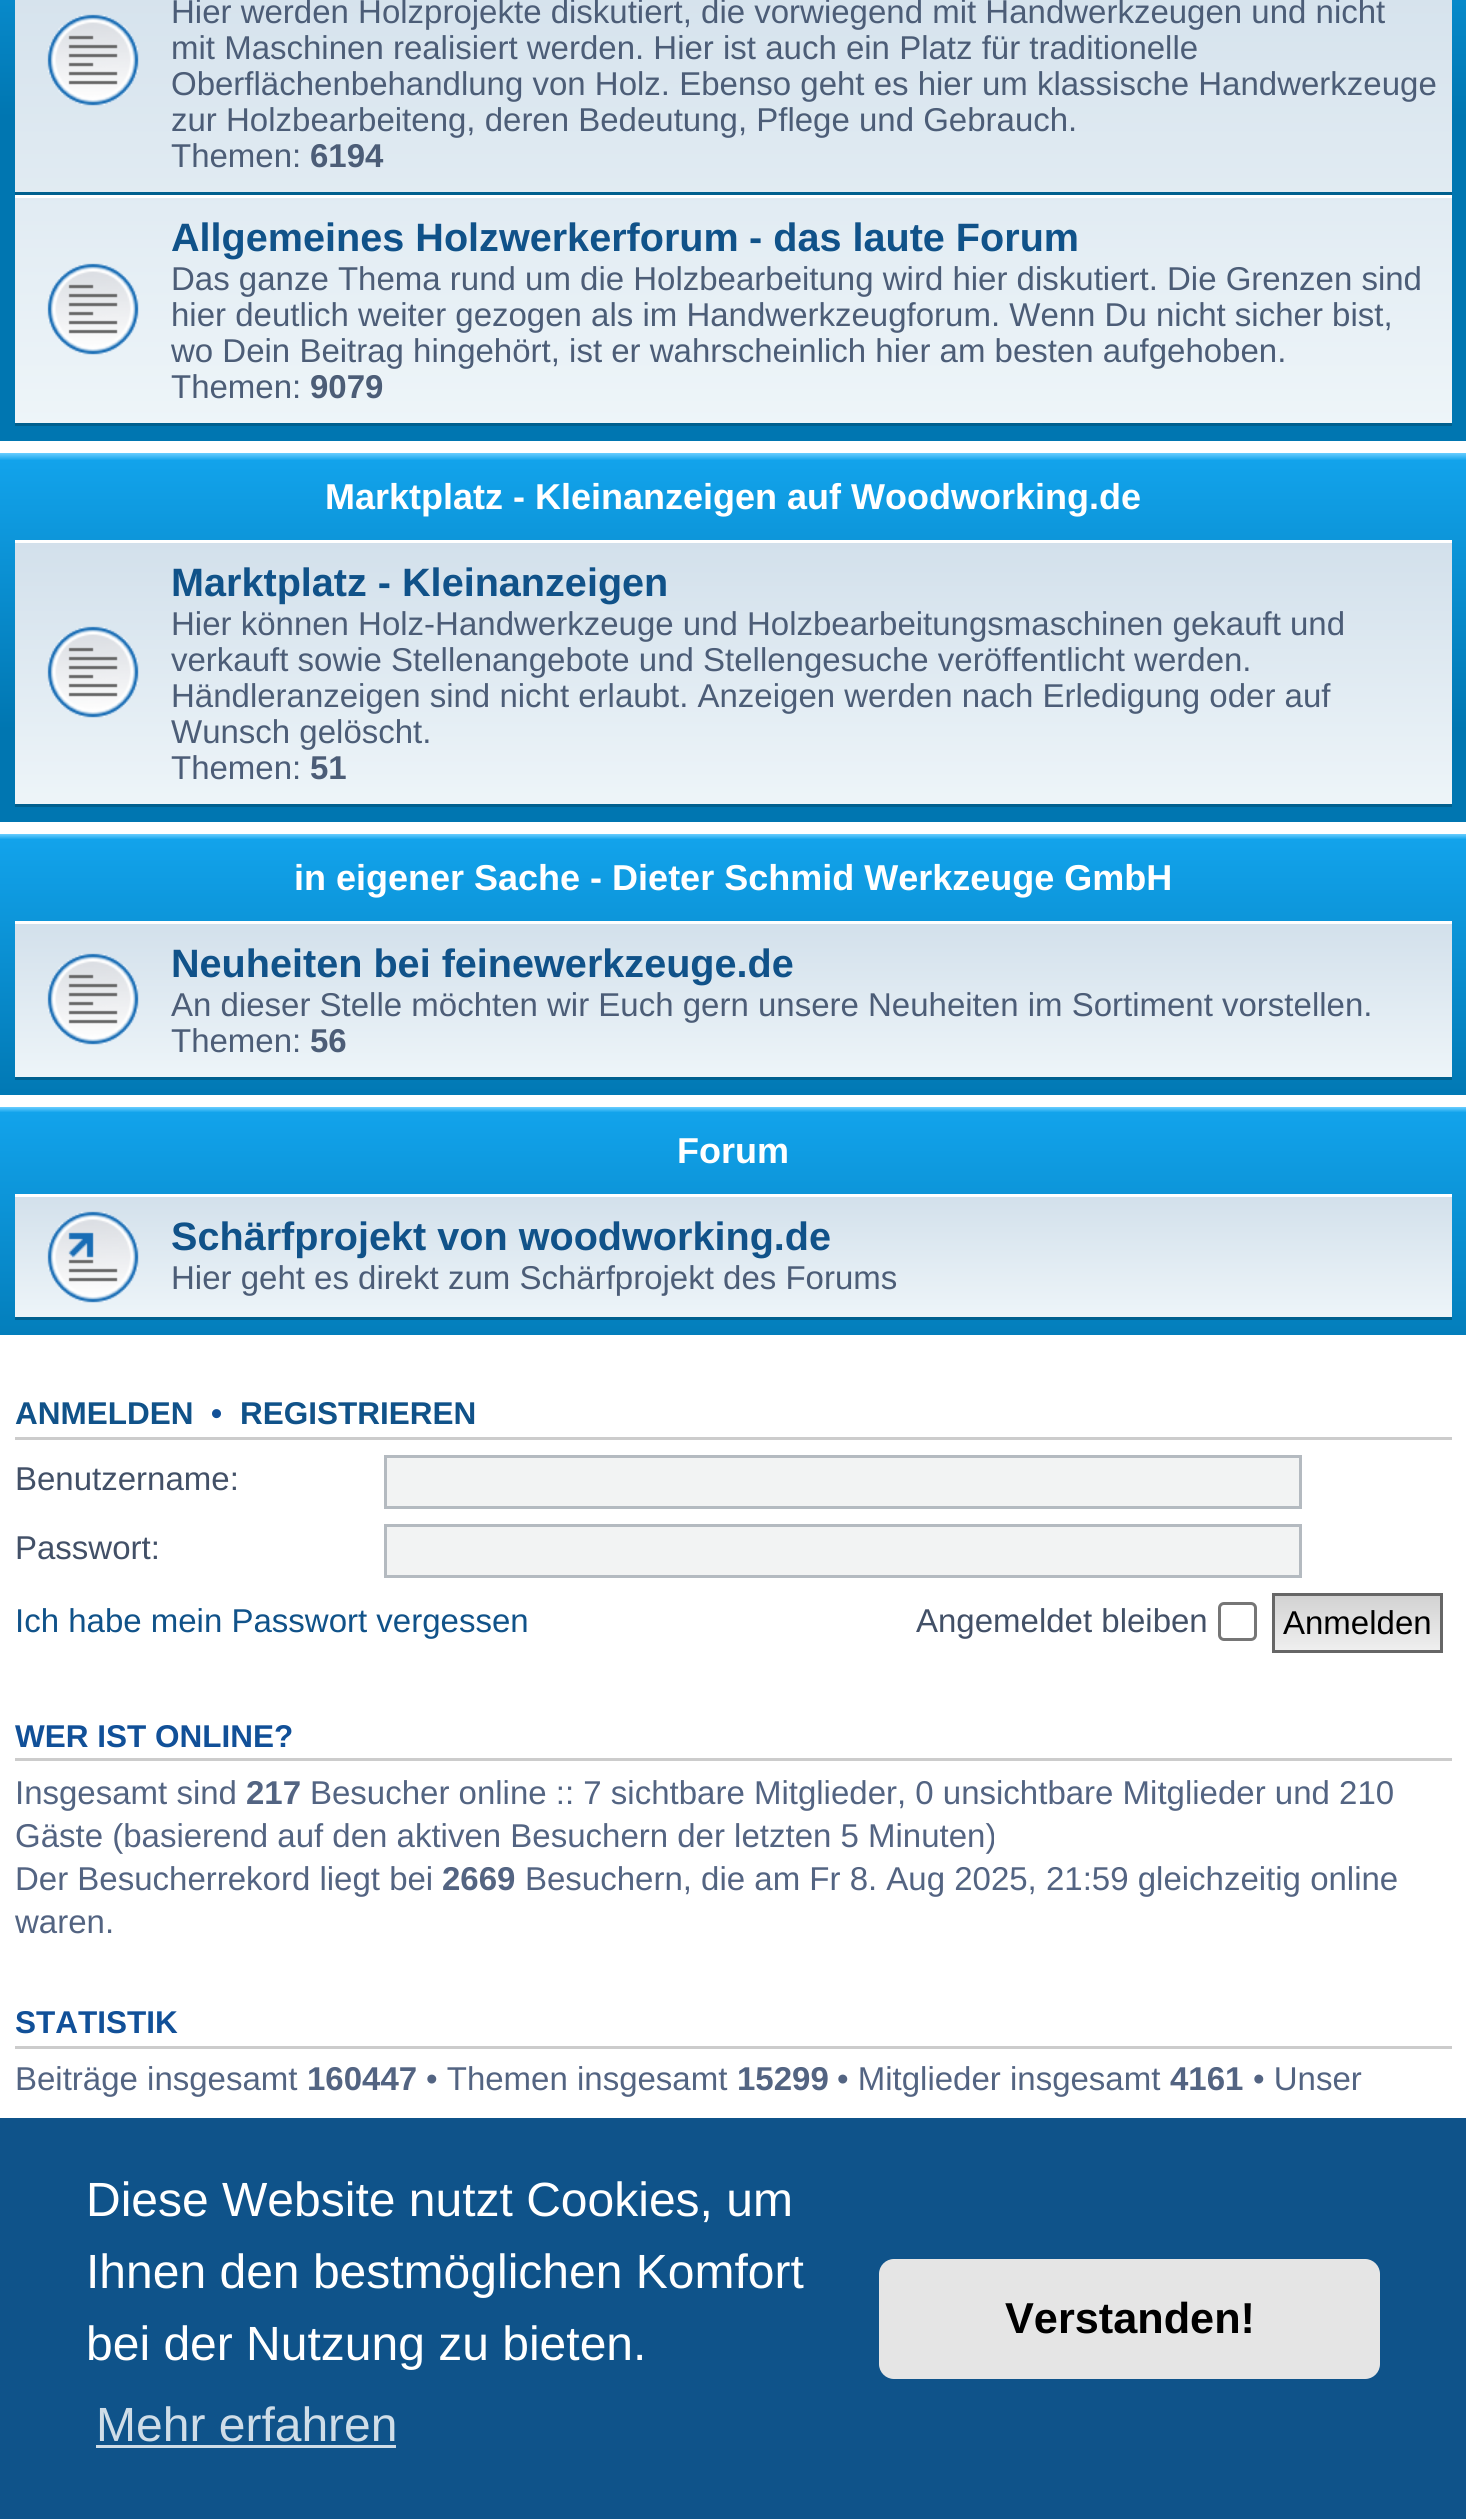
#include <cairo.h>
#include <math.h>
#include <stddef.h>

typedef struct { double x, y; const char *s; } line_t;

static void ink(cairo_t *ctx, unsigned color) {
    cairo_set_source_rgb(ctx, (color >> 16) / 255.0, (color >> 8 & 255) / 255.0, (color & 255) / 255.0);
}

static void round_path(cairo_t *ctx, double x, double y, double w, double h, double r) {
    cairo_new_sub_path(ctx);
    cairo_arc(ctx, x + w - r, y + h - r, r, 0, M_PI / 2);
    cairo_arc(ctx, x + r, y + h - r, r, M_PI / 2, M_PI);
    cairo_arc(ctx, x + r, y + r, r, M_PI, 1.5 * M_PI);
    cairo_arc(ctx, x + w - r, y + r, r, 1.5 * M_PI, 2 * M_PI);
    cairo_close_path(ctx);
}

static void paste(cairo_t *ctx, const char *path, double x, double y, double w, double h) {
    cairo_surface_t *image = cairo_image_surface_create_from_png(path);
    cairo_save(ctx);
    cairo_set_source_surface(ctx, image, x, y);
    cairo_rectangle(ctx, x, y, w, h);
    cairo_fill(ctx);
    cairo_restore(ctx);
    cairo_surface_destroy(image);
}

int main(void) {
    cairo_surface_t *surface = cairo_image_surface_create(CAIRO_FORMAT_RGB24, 1466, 2519);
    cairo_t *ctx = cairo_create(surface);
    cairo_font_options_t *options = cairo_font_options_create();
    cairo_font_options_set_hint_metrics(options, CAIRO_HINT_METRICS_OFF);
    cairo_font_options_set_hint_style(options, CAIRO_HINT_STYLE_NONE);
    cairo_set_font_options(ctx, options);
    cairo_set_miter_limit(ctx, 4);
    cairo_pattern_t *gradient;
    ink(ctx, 0xFFFFFF);
    cairo_paint(ctx);
    gradient = cairo_pattern_create_linear(734, -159, 734, 441);
    cairo_pattern_add_color_stop_rgba(gradient, 0, 0.416, 0.808, 1, 1);
    cairo_pattern_add_color_stop_rgba(gradient, 0.01, 0.071, 0.639, 0.922, 1);
    cairo_pattern_add_color_stop_rgba(gradient, 0.46, 0, 0.463, 0.694, 1);
    cairo_pattern_add_color_stop_rgba(gradient, 1, 0, 0.463, 0.694, 1);
    cairo_set_source(ctx, gradient);
    cairo_pattern_destroy(gradient);
    cairo_rectangle(ctx, 0, 0, 1466, 441);
    cairo_fill(ctx);
    gradient = cairo_pattern_create_linear(734, -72, 734, 426);
    cairo_pattern_add_color_stop_rgba(gradient, 0, 0.824, 0.878, 0.922, 1);
    cairo_pattern_add_color_stop_rgba(gradient, 1, 0.933, 0.961, 0.976, 1);
    cairo_set_source(ctx, gradient);
    cairo_pattern_destroy(gradient);
    cairo_rectangle(ctx, 15, 0, 1437, 423);
    cairo_fill(ctx);
    ink(ctx, 0x00608F);
    cairo_rectangle(ctx, 15, 192, 1437, 3);
    cairo_fill(ctx);
    paste(ctx, "media/1.png", 47, 14, 92, 92);
    cairo_select_font_face(ctx, "Liberation Sans", CAIRO_FONT_SLANT_NORMAL, CAIRO_FONT_WEIGHT_NORMAL);
    cairo_set_font_size(ctx, 33);
    ink(ctx, 0x4C5D77);
    {
        static const line_t items[] = {
            {171, 23, "Hier werden Holzprojekte diskutiert, die vorwiegend mit Handwerkzeugen und nicht"},
            {171, 59, "mit Maschinen realisiert werden. Hier ist auch ein Platz für traditionelle"},
            {171, 95, "Oberflächenbehandlung von Holz. Ebenso geht es hier um klassische Handwerkzeuge"},
            {171, 131, "zur Holzbearbeiteng, deren Bedeutung, Pflege und Gebrauch."},
            {171, 167, "Themen:"},
        };
        for (size_t i = 0; i < sizeof items / sizeof *items; i++) {
            cairo_move_to(ctx, items[i].x, items[i].y);
            cairo_show_text(ctx, items[i].s);
        }
    }
    cairo_select_font_face(ctx, "Liberation Sans", CAIRO_FONT_SLANT_NORMAL, CAIRO_FONT_WEIGHT_BOLD);
    cairo_move_to(ctx, 310, 167);
    cairo_show_text(ctx, "6194");
    ink(ctx, 0xFFFFFF);
    cairo_rectangle(ctx, 15, 195, 1437, 3);
    cairo_fill(ctx);
    ink(ctx, 0x00608F);
    cairo_rectangle(ctx, 15, 423, 1437, 3);
    cairo_fill(ctx);
    paste(ctx, "media/2.png", 47, 263, 92, 92);
    cairo_set_font_size(ctx, 39.6);
    ink(ctx, 0x105289);
    cairo_move_to(ctx, 171, 251);
    cairo_show_text(ctx, "Allgemeines Holzwerkerforum");
    cairo_move_to(ctx, 749, 251);
    cairo_show_text(ctx, "- das laute Forum");
    cairo_select_font_face(ctx, "Liberation Sans", CAIRO_FONT_SLANT_NORMAL, CAIRO_FONT_WEIGHT_NORMAL);
    cairo_set_font_size(ctx, 33);
    ink(ctx, 0x4C5D77);
    {
        static const line_t items[] = {
            {171, 290, "Das ganze Thema rund um die Holzbearbeitung wird hier diskutiert. Die Grenzen sind"},
            {171, 326, "hier deutlich weiter gezogen als im Handwerkzeugforum. Wenn Du nicht sicher bist,"},
            {171, 362, "wo Dein Beitrag hingehört, ist er wahrscheinlich hier am besten aufgehoben."},
            {171, 398, "Themen:"},
        };
        for (size_t i = 0; i < sizeof items / sizeof *items; i++) {
            cairo_move_to(ctx, items[i].x, items[i].y);
            cairo_show_text(ctx, items[i].s);
        }
    }
    cairo_select_font_face(ctx, "Liberation Sans", CAIRO_FONT_SLANT_NORMAL, CAIRO_FONT_WEIGHT_BOLD);
    cairo_move_to(ctx, 310, 398);
    cairo_show_text(ctx, "9079");
    gradient = cairo_pattern_create_linear(734, 453, 734, 822);
    cairo_pattern_add_color_stop_rgba(gradient, 0, 0.416, 0.808, 1, 1);
    cairo_pattern_add_color_stop_rgba(gradient, 0.02, 0.071, 0.639, 0.922, 1);
    cairo_pattern_add_color_stop_rgba(gradient, 0.75, 0, 0.463, 0.694, 1);
    cairo_pattern_add_color_stop_rgba(gradient, 1, 0, 0.463, 0.694, 1);
    cairo_set_source(ctx, gradient);
    cairo_pattern_destroy(gradient);
    cairo_rectangle(ctx, 0, 453, 1466, 369);
    cairo_fill(ctx);
    cairo_set_font_size(ctx, 36);
    ink(ctx, 0xFFFFFF);
    cairo_move_to(ctx, 325, 509);
    cairo_show_text(ctx, "Marktplatz - Kleinanzeigen auf Woodworking.de");
    gradient = cairo_pattern_create_linear(734, 540, 734, 807);
    cairo_pattern_add_color_stop_rgba(gradient, 0, 0.824, 0.878, 0.922, 1);
    cairo_pattern_add_color_stop_rgba(gradient, 1, 0.933, 0.961, 0.976, 1);
    cairo_set_source(ctx, gradient);
    cairo_pattern_destroy(gradient);
    cairo_rectangle(ctx, 15, 543, 1437, 261);
    cairo_fill(ctx);
    ink(ctx, 0xFFFFFF);
    cairo_rectangle(ctx, 15, 540, 1437, 3);
    cairo_fill(ctx);
    ink(ctx, 0x00608F);
    cairo_rectangle(ctx, 15, 804, 1437, 3);
    cairo_fill(ctx);
    paste(ctx, "media/3.png", 47, 626, 92, 92);
    cairo_set_font_size(ctx, 39.6);
    ink(ctx, 0x105289);
    cairo_move_to(ctx, 171, 596);
    cairo_show_text(ctx, "Marktplatz - Kleinanzeigen");
    cairo_select_font_face(ctx, "Liberation Sans", CAIRO_FONT_SLANT_NORMAL, CAIRO_FONT_WEIGHT_NORMAL);
    cairo_set_font_size(ctx, 33);
    ink(ctx, 0x4C5D77);
    {
        static const line_t items[] = {
            {171, 635, "Hier können Holz-Handwerkzeuge und Holzbearbeitungsmaschinen gekauft und"},
            {171, 671, "verkauft sowie Stellenangebote und Stellengesuche veröffentlicht werden."},
            {171, 707, "Händleranzeigen sind nicht erlaubt. Anzeigen werden nach Erledigung oder auf"},
            {171, 743, "Wunsch gelöscht."},
            {171, 779, "Themen:"},
        };
        for (size_t i = 0; i < sizeof items / sizeof *items; i++) {
            cairo_move_to(ctx, items[i].x, items[i].y);
            cairo_show_text(ctx, items[i].s);
        }
    }
    cairo_select_font_face(ctx, "Liberation Sans", CAIRO_FONT_SLANT_NORMAL, CAIRO_FONT_WEIGHT_BOLD);
    cairo_move_to(ctx, 310, 779);
    cairo_show_text(ctx, "51");
    gradient = cairo_pattern_create_linear(734, 834, 734, 1110);
    cairo_pattern_add_color_stop_rgba(gradient, 0, 0.416, 0.808, 1, 1);
    cairo_pattern_add_color_stop_rgba(gradient, 0.02, 0.071, 0.639, 0.922, 1);
    cairo_pattern_add_color_stop_rgba(gradient, 1, 0, 0.463, 0.694, 1);
    cairo_set_source(ctx, gradient);
    cairo_pattern_destroy(gradient);
    cairo_rectangle(ctx, 0, 834, 1466, 261);
    cairo_fill(ctx);
    cairo_set_font_size(ctx, 36);
    ink(ctx, 0xFFFFFF);
    cairo_move_to(ctx, 294, 890);
    cairo_show_text(ctx, "in eigener Sache - Dieter Schmid Werkzeuge GmbH");
    gradient = cairo_pattern_create_linear(734, 921, 734, 1080);
    cairo_pattern_add_color_stop_rgba(gradient, 0, 0.824, 0.878, 0.922, 1);
    cairo_pattern_add_color_stop_rgba(gradient, 1, 0.933, 0.961, 0.976, 1);
    cairo_set_source(ctx, gradient);
    cairo_pattern_destroy(gradient);
    cairo_rectangle(ctx, 15, 924, 1437, 153);
    cairo_fill(ctx);
    ink(ctx, 0xFFFFFF);
    cairo_rectangle(ctx, 15, 921, 1437, 3);
    cairo_fill(ctx);
    ink(ctx, 0x00608F);
    cairo_rectangle(ctx, 15, 1077, 1437, 3);
    cairo_fill(ctx);
    paste(ctx, "media/4.png", 47, 953, 92, 92);
    cairo_set_font_size(ctx, 39.6);
    ink(ctx, 0x105289);
    cairo_move_to(ctx, 171, 977);
    cairo_show_text(ctx, "Neuheiten bei feinewerkzeuge.de");
    cairo_select_font_face(ctx, "Liberation Sans", CAIRO_FONT_SLANT_NORMAL, CAIRO_FONT_WEIGHT_NORMAL);
    cairo_set_font_size(ctx, 33);
    ink(ctx, 0x4C5D77);
    cairo_move_to(ctx, 171, 1016);
    cairo_show_text(ctx, "An dieser Stelle möchten wir Euch gern unsere Neuheiten im Sortiment vorstellen.");
    cairo_move_to(ctx, 171, 1052);
    cairo_show_text(ctx, "Themen:");
    cairo_select_font_face(ctx, "Liberation Sans", CAIRO_FONT_SLANT_NORMAL, CAIRO_FONT_WEIGHT_BOLD);
    cairo_move_to(ctx, 310, 1052);
    cairo_show_text(ctx, "56");
    gradient = cairo_pattern_create_linear(734, 1107, 734, 1383);
    cairo_pattern_add_color_stop_rgba(gradient, 0, 0.416, 0.808, 1, 1);
    cairo_pattern_add_color_stop_rgba(gradient, 0.02, 0.071, 0.639, 0.922, 1);
    cairo_pattern_add_color_stop_rgba(gradient, 1, 0, 0.463, 0.694, 1);
    cairo_set_source(ctx, gradient);
    cairo_pattern_destroy(gradient);
    cairo_rectangle(ctx, 0, 1107, 1466, 228);
    cairo_fill(ctx);
    cairo_set_font_size(ctx, 36);
    ink(ctx, 0xFFFFFF);
    cairo_move_to(ctx, 677, 1163);
    cairo_show_text(ctx, "Forum");
    gradient = cairo_pattern_create_linear(734, 1194, 734, 1320);
    cairo_pattern_add_color_stop_rgba(gradient, 0, 0.824, 0.878, 0.922, 1);
    cairo_pattern_add_color_stop_rgba(gradient, 1, 0.933, 0.961, 0.976, 1);
    cairo_set_source(ctx, gradient);
    cairo_pattern_destroy(gradient);
    cairo_rectangle(ctx, 15, 1197, 1437, 120);
    cairo_fill(ctx);
    ink(ctx, 0xFFFFFF);
    cairo_rectangle(ctx, 15, 1194, 1437, 3);
    cairo_fill(ctx);
    ink(ctx, 0x00608F);
    cairo_rectangle(ctx, 15, 1317, 1437, 3);
    cairo_fill(ctx);
    paste(ctx, "media/5.png", 47, 1211, 92, 92);
    cairo_set_font_size(ctx, 39.6);
    ink(ctx, 0x105289);
    cairo_move_to(ctx, 171, 1250);
    cairo_show_text(ctx, "Schärfprojekt von woodworking.de");
    cairo_select_font_face(ctx, "Liberation Sans", CAIRO_FONT_SLANT_NORMAL, CAIRO_FONT_WEIGHT_NORMAL);
    cairo_set_font_size(ctx, 33);
    ink(ctx, 0x4C5D77);
    cairo_move_to(ctx, 171, 1289);
    cairo_show_text(ctx, "Hier geht es direkt zum Schärfprojekt des Forums");
    ink(ctx, 0xCCCCCC);
    cairo_rectangle(ctx, 15, 1437, 1437, 3);
    cairo_fill(ctx);
    cairo_select_font_face(ctx, "Liberation Sans", CAIRO_FONT_SLANT_NORMAL, CAIRO_FONT_WEIGHT_BOLD);
    cairo_set_font_size(ctx, 31.5);
    ink(ctx, 0x105289);
    cairo_move_to(ctx, 15, 1424);
    cairo_show_text(ctx, "ANMELDEN");
    ink(ctx, 0x115098);
    cairo_move_to(ctx, 211, 1424);
    cairo_show_text(ctx, "•");
    ink(ctx, 0x105289);
    cairo_move_to(ctx, 240, 1424);
    cairo_show_text(ctx, "REGISTRIEREN");
    cairo_select_font_face(ctx, "Liberation Sans", CAIRO_FONT_SLANT_NORMAL, CAIRO_FONT_WEIGHT_NORMAL);
    cairo_set_font_size(ctx, 33);
    ink(ctx, 0x425067);
    cairo_move_to(ctx, 15, 1490);
    cairo_show_text(ctx, "Benutzername:");
    ink(ctx, 0xF2F3F3);
    cairo_rectangle(ctx, 385.5, 1456.5, 915, 51);
    cairo_fill_preserve(ctx);
    ink(ctx, 0xB4BAC0);
    cairo_set_line_width(ctx, 3);
    cairo_stroke(ctx);
    ink(ctx, 0x425067);
    cairo_move_to(ctx, 15, 1559);
    cairo_show_text(ctx, "Passwort:");
    ink(ctx, 0xF2F3F3);
    cairo_rectangle(ctx, 385.5, 1525.5, 915, 51);
    cairo_fill_preserve(ctx);
    ink(ctx, 0xB4BAC0);
    cairo_stroke(ctx);
    ink(ctx, 0x105289);
    cairo_move_to(ctx, 15, 1632);
    cairo_show_text(ctx, "Ich habe mein Passwort vergessen");
    ink(ctx, 0x425067);
    cairo_move_to(ctx, 916, 1632);
    cairo_show_text(ctx, "Angemeldet bleiben");
    round_path(ctx, 1219.5, 1603.5, 36, 36, 4.5);
    ink(ctx, 0x767676);
    cairo_stroke(ctx);
    gradient = cairo_pattern_create_linear(1358, 1596, 1358, 1650);
    cairo_pattern_add_color_stop_rgba(gradient, 0, 0.824, 0.824, 0.824, 1);
    cairo_pattern_add_color_stop_rgba(gradient, 1, 0.937, 0.937, 0.937, 1);
    cairo_set_source(ctx, gradient);
    cairo_pattern_destroy(gradient);
    cairo_rectangle(ctx, 1275, 1596, 165, 54);
    cairo_fill(ctx);
    cairo_rectangle(ctx, 1273.5, 1594.5, 168, 57);
    ink(ctx, 0x666666);
    cairo_stroke(ctx);
    ink(ctx, 0x000000);
    cairo_move_to(ctx, 1283, 1634);
    cairo_show_text(ctx, "Anmelden");
    ink(ctx, 0xCCCCCC);
    cairo_rectangle(ctx, 15, 1758, 1437, 3);
    cairo_fill(ctx);
    cairo_select_font_face(ctx, "Liberation Sans", CAIRO_FONT_SLANT_NORMAL, CAIRO_FONT_WEIGHT_BOLD);
    cairo_set_font_size(ctx, 31.5);
    ink(ctx, 0x115098);
    cairo_move_to(ctx, 15, 1747);
    cairo_show_text(ctx, "WER IST ONLINE?");
    cairo_select_font_face(ctx, "Liberation Sans", CAIRO_FONT_SLANT_NORMAL, CAIRO_FONT_WEIGHT_NORMAL);
    cairo_set_font_size(ctx, 33);
    ink(ctx, 0x536482);
    cairo_move_to(ctx, 15, 1804);
    cairo_show_text(ctx, "Insgesamt sind");
    cairo_select_font_face(ctx, "Liberation Sans", CAIRO_FONT_SLANT_NORMAL, CAIRO_FONT_WEIGHT_BOLD);
    cairo_move_to(ctx, 246, 1804);
    cairo_show_text(ctx, "217");
    cairo_select_font_face(ctx, "Liberation Sans", CAIRO_FONT_SLANT_NORMAL, CAIRO_FONT_WEIGHT_NORMAL);
    {
        static const line_t items[] = {
            {310, 1804, "Besucher online :: 7 sichtbare Mitglieder, 0 unsichtbare Mitglieder und 210"},
            {15, 1847, "Gäste (basierend auf den aktiven Besuchern der letzten 5 Minuten)"},
            {15, 1890, "Der Besucherrekord liegt bei"},
        };
        for (size_t i = 0; i < sizeof items / sizeof *items; i++) {
            cairo_move_to(ctx, items[i].x, items[i].y);
            cairo_show_text(ctx, items[i].s);
        }
    }
    cairo_select_font_face(ctx, "Liberation Sans", CAIRO_FONT_SLANT_NORMAL, CAIRO_FONT_WEIGHT_BOLD);
    cairo_move_to(ctx, 442, 1890);
    cairo_show_text(ctx, "2669");
    cairo_select_font_face(ctx, "Liberation Sans", CAIRO_FONT_SLANT_NORMAL, CAIRO_FONT_WEIGHT_NORMAL);
    cairo_move_to(ctx, 525, 1890);
    cairo_show_text(ctx, "Besuchern, die am Fr 8. Aug 2025, 21:59 gleichzeitig online");
    cairo_move_to(ctx, 15, 1933);
    cairo_show_text(ctx, "waren.");
    ink(ctx, 0xCCCCCC);
    cairo_rectangle(ctx, 15, 2046, 1437, 3);
    cairo_fill(ctx);
    cairo_select_font_face(ctx, "Liberation Sans", CAIRO_FONT_SLANT_NORMAL, CAIRO_FONT_WEIGHT_BOLD);
    cairo_set_font_size(ctx, 31.5);
    ink(ctx, 0x115098);
    cairo_move_to(ctx, 15, 2033);
    cairo_show_text(ctx, "STATISTIK");
    cairo_select_font_face(ctx, "Liberation Sans", CAIRO_FONT_SLANT_NORMAL, CAIRO_FONT_WEIGHT_NORMAL);
    cairo_set_font_size(ctx, 33);
    ink(ctx, 0x536482);
    cairo_move_to(ctx, 15, 2090);
    cairo_show_text(ctx, "Beiträge insgesamt");
    cairo_select_font_face(ctx, "Liberation Sans", CAIRO_FONT_SLANT_NORMAL, CAIRO_FONT_WEIGHT_BOLD);
    cairo_move_to(ctx, 307, 2090);
    cairo_show_text(ctx, "160447");
    cairo_select_font_face(ctx, "Liberation Sans", CAIRO_FONT_SLANT_NORMAL, CAIRO_FONT_WEIGHT_NORMAL);
    cairo_move_to(ctx, 426, 2090);
    cairo_show_text(ctx, "• Themen insgesamt");
    cairo_select_font_face(ctx, "Liberation Sans", CAIRO_FONT_SLANT_NORMAL, CAIRO_FONT_WEIGHT_BOLD);
    cairo_move_to(ctx, 737, 2090);
    cairo_show_text(ctx, "15299");
    cairo_select_font_face(ctx, "Liberation Sans", CAIRO_FONT_SLANT_NORMAL, CAIRO_FONT_WEIGHT_NORMAL);
    cairo_move_to(ctx, 837, 2090);
    cairo_show_text(ctx, "• Mitglieder insgesamt");
    cairo_select_font_face(ctx, "Liberation Sans", CAIRO_FONT_SLANT_NORMAL, CAIRO_FONT_WEIGHT_BOLD);
    cairo_move_to(ctx, 1170, 2090);
    cairo_show_text(ctx, "4161");
    cairo_select_font_face(ctx, "Liberation Sans", CAIRO_FONT_SLANT_NORMAL, CAIRO_FONT_WEIGHT_NORMAL);
    cairo_move_to(ctx, 1253, 2090);
    cairo_show_text(ctx, "• Unser");
    ink(ctx, 0x0F538A);
    cairo_rectangle(ctx, 0, 2118, 1466, 401);
    cairo_fill(ctx);
    cairo_set_font_size(ctx, 48);
    ink(ctx, 0xFFFFFF);
    {
        static const line_t items[] = {
            {86, 2216, "Diese Website nutzt Cookies, um"},
            {86, 2288, "Ihnen den bestmöglichen Komfort"},
            {86, 2360, "bei der Nutzung zu bieten."},
        };
        for (size_t i = 0; i < sizeof items / sizeof *items; i++) {
            cairo_move_to(ctx, items[i].x, items[i].y);
            cairo_show_text(ctx, items[i].s);
        }
    }
    ink(ctx, 0xCFDDE8);
    cairo_move_to(ctx, 96, 2441);
    cairo_show_text(ctx, "Mehr erfahren");
    cairo_rectangle(ctx, 96, 2445, 300, 3);
    cairo_fill(ctx);
    ink(ctx, 0xE5E5E5);
    round_path(ctx, 879, 2259, 501, 120, 15);
    cairo_fill(ctx);
    cairo_select_font_face(ctx, "Liberation Sans", CAIRO_FONT_SLANT_NORMAL, CAIRO_FONT_WEIGHT_BOLD);
    cairo_set_font_size(ctx, 43.25);
    ink(ctx, 0x000000);
    cairo_move_to(ctx, 1005, 2333);
    cairo_show_text(ctx, "Verstanden!");
    cairo_surface_write_to_png(surface, "image.png");
    cairo_font_options_destroy(options);
    cairo_destroy(ctx);
    cairo_surface_destroy(surface);
    return 0;
}
